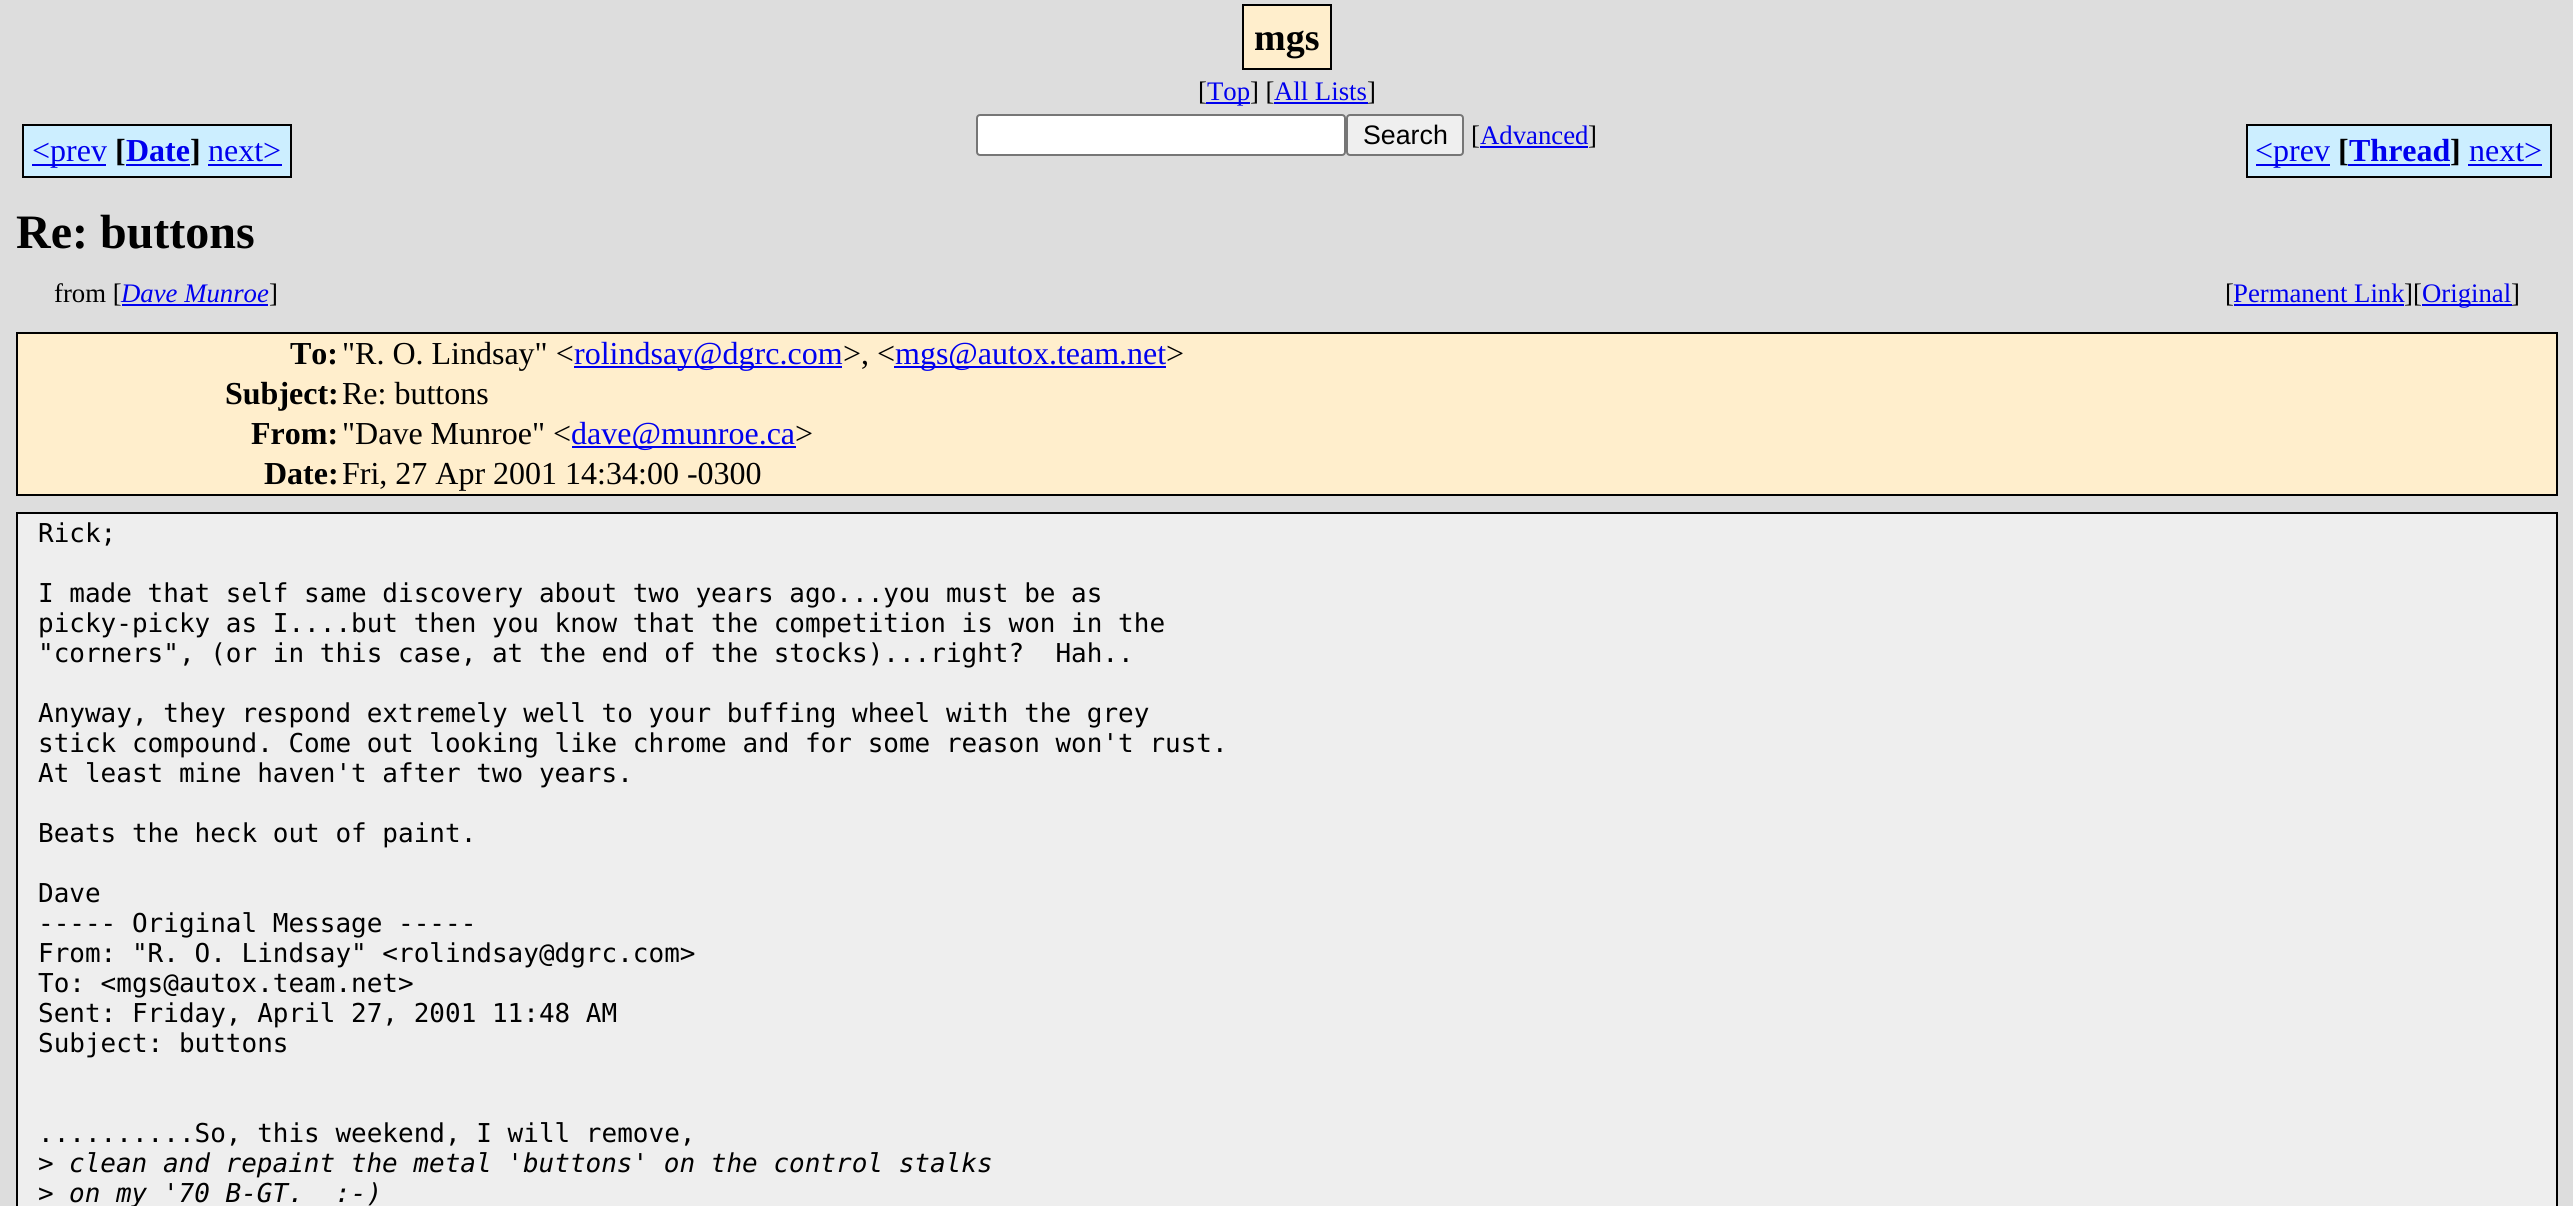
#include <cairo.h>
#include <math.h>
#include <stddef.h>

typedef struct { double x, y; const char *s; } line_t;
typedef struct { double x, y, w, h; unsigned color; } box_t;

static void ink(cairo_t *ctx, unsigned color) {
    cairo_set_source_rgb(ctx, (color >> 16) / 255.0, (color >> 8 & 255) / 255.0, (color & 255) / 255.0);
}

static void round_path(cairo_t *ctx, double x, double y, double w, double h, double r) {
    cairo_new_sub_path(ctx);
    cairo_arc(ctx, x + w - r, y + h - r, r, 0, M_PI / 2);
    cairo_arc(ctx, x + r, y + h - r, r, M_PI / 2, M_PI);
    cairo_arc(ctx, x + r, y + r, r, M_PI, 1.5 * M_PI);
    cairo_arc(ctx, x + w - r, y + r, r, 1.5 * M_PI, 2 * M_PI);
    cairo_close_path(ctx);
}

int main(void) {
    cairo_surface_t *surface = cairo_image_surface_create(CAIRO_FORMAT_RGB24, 2573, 1206);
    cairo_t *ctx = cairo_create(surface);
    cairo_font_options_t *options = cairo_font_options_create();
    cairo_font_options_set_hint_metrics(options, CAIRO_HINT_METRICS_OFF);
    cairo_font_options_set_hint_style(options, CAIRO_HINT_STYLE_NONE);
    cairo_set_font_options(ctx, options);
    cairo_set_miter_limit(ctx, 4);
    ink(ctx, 0xDDDDDD);
    cairo_paint(ctx);
    ink(ctx, 0xFFEECC);
    cairo_rectangle(ctx, 1243, 5, 88, 64);
    cairo_fill_preserve(ctx);
    ink(ctx, 0x000000);
    cairo_stroke(ctx);
    cairo_select_font_face(ctx, "Liberation Serif", CAIRO_FONT_SLANT_NORMAL, CAIRO_FONT_WEIGHT_BOLD);
    cairo_set_font_size(ctx, 38);
    cairo_move_to(ctx, 1254, 50);
    cairo_show_text(ctx, "mgs");
    cairo_select_font_face(ctx, "Liberation Serif", CAIRO_FONT_SLANT_NORMAL, CAIRO_FONT_WEIGHT_NORMAL);
    cairo_set_font_size(ctx, 26.75);
    cairo_move_to(ctx, 1198, 100);
    cairo_show_text(ctx, "[");
    ink(ctx, 0x0000EE);
    cairo_rectangle(ctx, 1206, 102, 44, 2);
    cairo_fill(ctx);
    cairo_move_to(ctx, 1207, 100);
    cairo_show_text(ctx, "Top");
    ink(ctx, 0x000000);
    cairo_move_to(ctx, 1250, 100);
    cairo_show_text(ctx, "] [");
    ink(ctx, 0x0000EE);
    cairo_move_to(ctx, 1274, 100);
    cairo_show_text(ctx, "All Lists");
    cairo_rectangle(ctx, 1274, 102, 94, 2);
    cairo_fill(ctx);
    ink(ctx, 0x000000);
    cairo_move_to(ctx, 1367, 100);
    cairo_show_text(ctx, "]");
    {
        static const box_t items[] = {
            {24, 126, 82, 50, 0xCCEEFF},
            {32, 164, 74, 2, 0x0000EE},
            {106, 124, 8, 54, 0xCCEEFF},
        };
        for (size_t i = 0; i < sizeof items / sizeof *items; i++) {
            ink(ctx, items[i].color);
            cairo_rectangle(ctx, items[i].x, items[i].y, items[i].w, items[i].h);
            cairo_fill(ctx);
        }
    }
    cairo_set_font_size(ctx, 32);
    ink(ctx, 0x0000EE);
    cairo_move_to(ctx, 32, 161);
    cairo_show_text(ctx, "<prev");
    {
        static const box_t items[] = {
            {22, 124, 84, 2, 0x000000},
            {22, 176, 84, 2, 0x000000},
            {22, 124, 2, 54, 0x000000},
            {106, 176, 94, 2, 0x000000},
            {114, 126, 86, 50, 0xCCEEFF},
        };
        for (size_t i = 0; i < sizeof items / sizeof *items; i++) {
            ink(ctx, items[i].color);
            cairo_rectangle(ctx, items[i].x, items[i].y, items[i].w, items[i].h);
            cairo_fill(ctx);
        }
    }
    cairo_select_font_face(ctx, "Liberation Serif", CAIRO_FONT_SLANT_NORMAL, CAIRO_FONT_WEIGHT_BOLD);
    ink(ctx, 0x000000);
    cairo_move_to(ctx, 115, 161);
    cairo_show_text(ctx, "[");
    ink(ctx, 0x0000EE);
    cairo_move_to(ctx, 126, 161);
    cairo_show_text(ctx, "Date");
    ink(ctx, 0x000000);
    cairo_rectangle(ctx, 106, 124, 94, 2);
    cairo_fill(ctx);
    cairo_move_to(ctx, 190, 161);
    cairo_show_text(ctx, "]");
    ink(ctx, 0x0000EE);
    cairo_rectangle(ctx, 126, 164, 64, 2);
    cairo_fill(ctx);
    ink(ctx, 0xCCEEFF);
    cairo_rectangle(ctx, 208, 126, 82, 50);
    cairo_fill(ctx);
    cairo_select_font_face(ctx, "Liberation Serif", CAIRO_FONT_SLANT_NORMAL, CAIRO_FONT_WEIGHT_NORMAL);
    ink(ctx, 0x0000EE);
    cairo_move_to(ctx, 208, 161);
    cairo_show_text(ctx, "next>");
    {
        static const box_t items[] = {
            {200, 124, 8, 54, 0xCCEEFF},
            {200, 124, 92, 2, 0x000000},
            {200, 176, 8, 2, 0x000000},
            {290, 124, 2, 54, 0x000000},
            {208, 176, 84, 2, 0x000000},
            {208, 164, 74, 2, 0x0000EE},
        };
        for (size_t i = 0; i < sizeof items / sizeof *items; i++) {
            ink(ctx, items[i].color);
            cairo_rectangle(ctx, items[i].x, items[i].y, items[i].w, items[i].h);
            cairo_fill(ctx);
        }
    }
    ink(ctx, 0xFFFFFF);
    round_path(ctx, 977, 115, 368, 40, 3);
    cairo_fill_preserve(ctx);
    ink(ctx, 0x767676);
    cairo_stroke(ctx);
    ink(ctx, 0xEFEFEF);
    round_path(ctx, 1347, 115, 116, 40, 3);
    cairo_fill_preserve(ctx);
    ink(ctx, 0x767676);
    cairo_stroke(ctx);
    cairo_select_font_face(ctx, "Liberation Sans", CAIRO_FONT_SLANT_NORMAL, CAIRO_FONT_WEIGHT_NORMAL);
    cairo_set_font_size(ctx, 26.75);
    ink(ctx, 0x000000);
    cairo_move_to(ctx, 1363, 144);
    cairo_show_text(ctx, "Search");
    cairo_select_font_face(ctx, "Liberation Serif", CAIRO_FONT_SLANT_NORMAL, CAIRO_FONT_WEIGHT_NORMAL);
    cairo_move_to(ctx, 1471, 144);
    cairo_show_text(ctx, "[");
    ink(ctx, 0x0000EE);
    cairo_rectangle(ctx, 1480, 146, 108, 2);
    cairo_fill(ctx);
    cairo_move_to(ctx, 1480, 144);
    cairo_show_text(ctx, "Advanced");
    ink(ctx, 0x000000);
    cairo_move_to(ctx, 1588, 144);
    cairo_show_text(ctx, "]");
    {
        static const box_t items[] = {
            {2248, 126, 82, 50, 0xCCEEFF},
            {2256, 164, 74, 2, 0x0000EE},
            {2330, 124, 8, 54, 0xCCEEFF},
        };
        for (size_t i = 0; i < sizeof items / sizeof *items; i++) {
            ink(ctx, items[i].color);
            cairo_rectangle(ctx, items[i].x, items[i].y, items[i].w, items[i].h);
            cairo_fill(ctx);
        }
    }
    cairo_set_font_size(ctx, 32);
    ink(ctx, 0x0000EE);
    cairo_move_to(ctx, 2255, 161);
    cairo_show_text(ctx, "<prev");
    {
        static const box_t items[] = {
            {2246, 124, 84, 2, 0x000000},
            {2246, 176, 84, 2, 0x000000},
            {2246, 124, 2, 54, 0x000000},
            {2330, 176, 130, 2, 0x000000},
            {2338, 126, 122, 50, 0xCCEEFF},
        };
        for (size_t i = 0; i < sizeof items / sizeof *items; i++) {
            ink(ctx, items[i].color);
            cairo_rectangle(ctx, items[i].x, items[i].y, items[i].w, items[i].h);
            cairo_fill(ctx);
        }
    }
    cairo_select_font_face(ctx, "Liberation Serif", CAIRO_FONT_SLANT_NORMAL, CAIRO_FONT_WEIGHT_BOLD);
    ink(ctx, 0x000000);
    cairo_move_to(ctx, 2338, 161);
    cairo_show_text(ctx, "[");
    ink(ctx, 0x0000EE);
    cairo_rectangle(ctx, 2348, 164, 102, 2);
    cairo_fill(ctx);
    cairo_move_to(ctx, 2349, 161);
    cairo_show_text(ctx, "Thread");
    ink(ctx, 0x000000);
    cairo_rectangle(ctx, 2330, 124, 130, 2);
    cairo_fill(ctx);
    cairo_move_to(ctx, 2450, 161);
    cairo_show_text(ctx, "]");
    {
        static const box_t items[] = {
            {2460, 124, 8, 54, 0xCCEEFF},
            {2460, 176, 8, 2, 0x000000},
            {2468, 126, 82, 50, 0xCCEEFF},
        };
        for (size_t i = 0; i < sizeof items / sizeof *items; i++) {
            ink(ctx, items[i].color);
            cairo_rectangle(ctx, items[i].x, items[i].y, items[i].w, items[i].h);
            cairo_fill(ctx);
        }
    }
    cairo_select_font_face(ctx, "Liberation Serif", CAIRO_FONT_SLANT_NORMAL, CAIRO_FONT_WEIGHT_NORMAL);
    ink(ctx, 0x0000EE);
    cairo_move_to(ctx, 2469, 161);
    cairo_show_text(ctx, "next>");
    {
        static const box_t items[] = {
            {2460, 124, 92, 2, 0x000000},
            {2550, 124, 2, 54, 0x000000},
            {2468, 176, 84, 2, 0x000000},
            {2468, 164, 74, 2, 0x0000EE},
        };
        for (size_t i = 0; i < sizeof items / sizeof *items; i++) {
            ink(ctx, items[i].color);
            cairo_rectangle(ctx, items[i].x, items[i].y, items[i].w, items[i].h);
            cairo_fill(ctx);
        }
    }
    cairo_select_font_face(ctx, "Liberation Serif", CAIRO_FONT_SLANT_NORMAL, CAIRO_FONT_WEIGHT_BOLD);
    cairo_set_font_size(ctx, 48);
    ink(ctx, 0x000000);
    cairo_move_to(ctx, 16, 248);
    cairo_show_text(ctx, "Re: buttons");
    cairo_select_font_face(ctx, "Liberation Serif", CAIRO_FONT_SLANT_NORMAL, CAIRO_FONT_WEIGHT_NORMAL);
    cairo_set_font_size(ctx, 26.75);
    cairo_move_to(ctx, 54, 302);
    cairo_show_text(ctx, "from [");
    ink(ctx, 0x0000EE);
    cairo_rectangle(ctx, 122, 304, 146, 2);
    cairo_fill(ctx);
    cairo_select_font_face(ctx, "Liberation Serif", CAIRO_FONT_SLANT_ITALIC, CAIRO_FONT_WEIGHT_NORMAL);
    cairo_move_to(ctx, 121, 302);
    cairo_show_text(ctx, "Dave Munroe");
    cairo_select_font_face(ctx, "Liberation Serif", CAIRO_FONT_SLANT_NORMAL, CAIRO_FONT_WEIGHT_NORMAL);
    ink(ctx, 0x000000);
    cairo_move_to(ctx, 269, 302);
    cairo_show_text(ctx, "]");
    cairo_move_to(ctx, 2225, 302);
    cairo_show_text(ctx, "[");
    ink(ctx, 0x0000EE);
    cairo_rectangle(ctx, 2234, 304, 170, 2);
    cairo_fill(ctx);
    cairo_move_to(ctx, 2233, 302);
    cairo_show_text(ctx, "Permanent Link");
    ink(ctx, 0x000000);
    cairo_move_to(ctx, 2404, 302);
    cairo_show_text(ctx, "][");
    ink(ctx, 0x0000EE);
    cairo_rectangle(ctx, 2422, 304, 90, 2);
    cairo_fill(ctx);
    cairo_move_to(ctx, 2422, 302);
    cairo_show_text(ctx, "Original");
    ink(ctx, 0x000000);
    cairo_move_to(ctx, 2511, 302);
    cairo_show_text(ctx, "]");
    ink(ctx, 0xFFEECC);
    cairo_rectangle(ctx, 17, 333, 2540, 162);
    cairo_fill_preserve(ctx);
    ink(ctx, 0x000000);
    cairo_stroke(ctx);
    cairo_select_font_face(ctx, "Liberation Serif", CAIRO_FONT_SLANT_NORMAL, CAIRO_FONT_WEIGHT_BOLD);
    cairo_set_font_size(ctx, 32);
    cairo_move_to(ctx, 290, 364);
    cairo_show_text(ctx, "To:");
    cairo_select_font_face(ctx, "Liberation Serif", CAIRO_FONT_SLANT_NORMAL, CAIRO_FONT_WEIGHT_NORMAL);
    cairo_move_to(ctx, 342, 364);
    cairo_show_text(ctx, "\"R. O. Lindsay\" <");
    ink(ctx, 0x0000EE);
    cairo_rectangle(ctx, 574, 366, 268, 2);
    cairo_fill(ctx);
    cairo_move_to(ctx, 574, 364);
    cairo_show_text(ctx, "rolindsay@dgrc.com");
    ink(ctx, 0x000000);
    cairo_move_to(ctx, 843, 364);
    cairo_show_text(ctx, ">, <");
    ink(ctx, 0x0000EE);
    cairo_rectangle(ctx, 894, 366, 272, 2);
    cairo_fill(ctx);
    cairo_move_to(ctx, 895, 364);
    cairo_show_text(ctx, "mgs@autox.team.net");
    ink(ctx, 0x000000);
    cairo_move_to(ctx, 1166, 364);
    cairo_show_text(ctx, ">");
    cairo_select_font_face(ctx, "Liberation Serif", CAIRO_FONT_SLANT_NORMAL, CAIRO_FONT_WEIGHT_BOLD);
    cairo_move_to(ctx, 225, 404);
    cairo_show_text(ctx, "Subject:");
    cairo_select_font_face(ctx, "Liberation Serif", CAIRO_FONT_SLANT_NORMAL, CAIRO_FONT_WEIGHT_NORMAL);
    cairo_move_to(ctx, 342, 404);
    cairo_show_text(ctx, "Re: buttons");
    cairo_select_font_face(ctx, "Liberation Serif", CAIRO_FONT_SLANT_NORMAL, CAIRO_FONT_WEIGHT_BOLD);
    cairo_move_to(ctx, 251, 444);
    cairo_show_text(ctx, "From:");
    cairo_select_font_face(ctx, "Liberation Serif", CAIRO_FONT_SLANT_NORMAL, CAIRO_FONT_WEIGHT_NORMAL);
    cairo_move_to(ctx, 342, 444);
    cairo_show_text(ctx, "\"Dave Munroe\" <");
    ink(ctx, 0x0000EE);
    cairo_rectangle(ctx, 572, 446, 224, 2);
    cairo_fill(ctx);
    cairo_move_to(ctx, 571, 444);
    cairo_show_text(ctx, "dave@munroe.ca");
    ink(ctx, 0x000000);
    cairo_move_to(ctx, 795, 444);
    cairo_show_text(ctx, ">");
    cairo_select_font_face(ctx, "Liberation Serif", CAIRO_FONT_SLANT_NORMAL, CAIRO_FONT_WEIGHT_BOLD);
    cairo_move_to(ctx, 264, 484);
    cairo_show_text(ctx, "Date:");
    cairo_select_font_face(ctx, "Liberation Serif", CAIRO_FONT_SLANT_NORMAL, CAIRO_FONT_WEIGHT_NORMAL);
    cairo_move_to(ctx, 342, 484);
    cairo_show_text(ctx, "Fri, 27 Apr 2001 14:34:00 -0300");
    ink(ctx, 0xEEEEEE);
    cairo_rectangle(ctx, 17, 513, 2540, 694);
    cairo_fill_preserve(ctx);
    ink(ctx, 0x000000);
    cairo_stroke(ctx);
    cairo_select_font_face(ctx, "DejaVu Sans Mono", CAIRO_FONT_SLANT_NORMAL, CAIRO_FONT_WEIGHT_NORMAL);
    cairo_set_font_size(ctx, 26);
    {
        static const line_t items[] = {
            {38, 542, "Rick;"},
            {38, 602, "I made that self same discovery about two years ago...you must be as"},
            {38, 632, "picky-picky as I....but then you know that the competition is won in the"},
            {38, 662, "\"corners\", (or in this case, at the end of the stocks)...right?  Hah.."},
            {38, 722, "Anyway, they respond extremely well to your buffing wheel with the grey"},
            {38, 752, "stick compound. Come out looking like chrome and for some reason won't rust."},
            {38, 782, "At least mine haven't after two years."},
            {38, 842, "Beats the heck out of paint."},
            {38, 902, "Dave"},
            {38, 932, "----- Original Message -----"},
            {38, 962, "From: \"R. O. Lindsay\" <rolindsay@dgrc.com>"},
            {38, 992, "To: <mgs@autox.team.net>"},
            {38, 1022, "Sent: Friday, April 27, 2001 11:48 AM"},
            {38, 1052, "Subject: buttons"},
            {38, 1142, "..........So, this weekend, I will remove,"},
            {38, 1172, ">"},
        };
        for (size_t i = 0; i < sizeof items / sizeof *items; i++) {
            cairo_move_to(ctx, items[i].x, items[i].y);
            cairo_show_text(ctx, items[i].s);
        }
    }
    cairo_select_font_face(ctx, "DejaVu Sans Mono", CAIRO_FONT_SLANT_ITALIC, CAIRO_FONT_WEIGHT_NORMAL);
    cairo_move_to(ctx, 69, 1172);
    cairo_show_text(ctx, "clean and repaint the metal 'buttons' on the control stalks");
    cairo_select_font_face(ctx, "DejaVu Sans Mono", CAIRO_FONT_SLANT_NORMAL, CAIRO_FONT_WEIGHT_NORMAL);
    cairo_move_to(ctx, 38, 1202);
    cairo_show_text(ctx, ">");
    cairo_select_font_face(ctx, "DejaVu Sans Mono", CAIRO_FONT_SLANT_ITALIC, CAIRO_FONT_WEIGHT_NORMAL);
    cairo_move_to(ctx, 69, 1202);
    cairo_show_text(ctx, "on my '70 B-GT.  :-)");
    cairo_surface_write_to_png(surface, "image.png");
    cairo_font_options_destroy(options);
    cairo_destroy(ctx);
    cairo_surface_destroy(surface);
    return 0;
}
